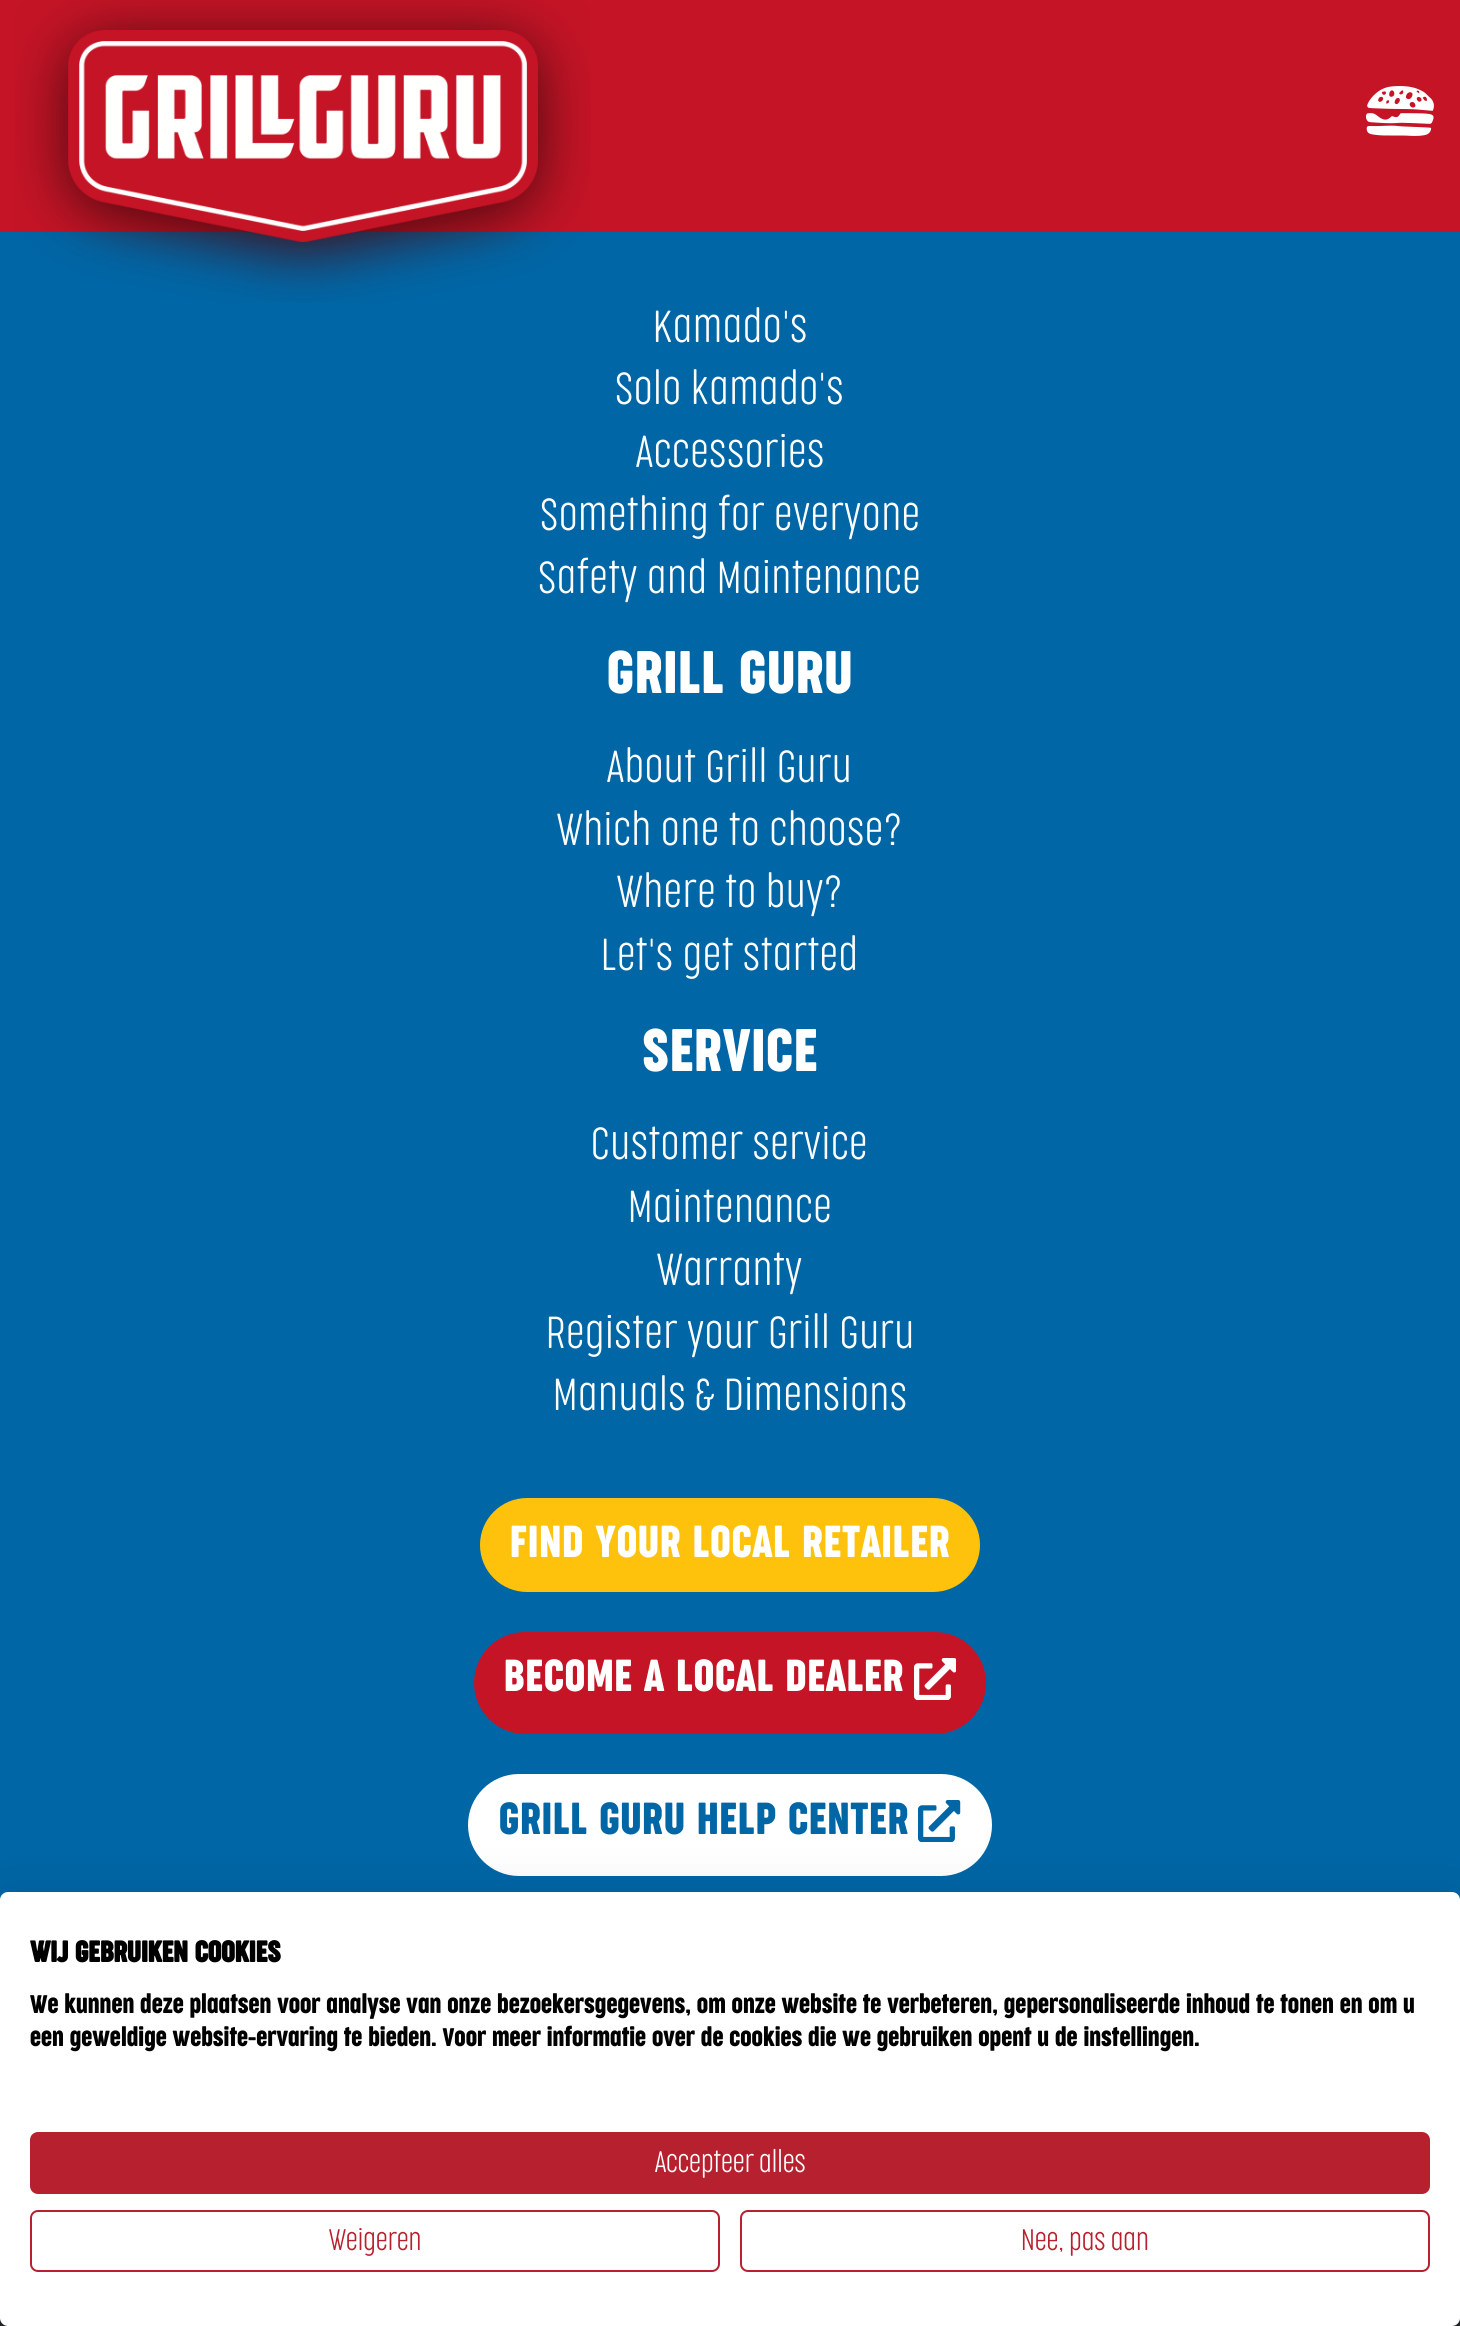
#include <cairo.h>
#include <math.h>
#include <stddef.h>

typedef struct { double x, y; const char *s; } line_t;

static void ink(cairo_t *ctx, unsigned color) {
    cairo_set_source_rgb(ctx, (color >> 16) / 255.0, (color >> 8 & 255) / 255.0, (color & 255) / 255.0);
}

static void write_spaced(cairo_t *ctx, double x, double y, const char *s, double letter, double word) {
    cairo_move_to(ctx, x, y);
    while (*s) {
        char ch[5] = {0};
        int n = 0;
        do ch[n++] = *s++; while ((*s & 0xC0) == 0x80);
        cairo_show_text(ctx, ch);
        cairo_rel_move_to(ctx, letter + word * (*ch == ' '), 0);
    }
}

static void round_path(cairo_t *ctx, double x, double y, double w, double h, double r) {
    cairo_new_sub_path(ctx);
    cairo_arc(ctx, x + w - r, y + h - r, r, 0, M_PI / 2);
    cairo_arc(ctx, x + r, y + h - r, r, M_PI / 2, M_PI);
    cairo_arc(ctx, x + r, y + r, r, M_PI, 1.5 * M_PI);
    cairo_arc(ctx, x + w - r, y + r, r, 1.5 * M_PI, 2 * M_PI);
    cairo_close_path(ctx);
}

static void blur_box(cairo_t *ctx, double x, double y, double w, double h, double r, double blur, double alpha) {
    cairo_push_group_with_content(ctx, CAIRO_CONTENT_ALPHA);
    cairo_set_operator(ctx, CAIRO_OPERATOR_SOURCE);
    for (int i = 15; i >= -15 && fmin(w, h) + blur * i / 3 > 0; i -= 2) {
        double e = blur * i / 6;
        cairo_set_source_rgba(ctx, 0, 0, 0, alpha * erfc((i - 1) / 8.5) / 2);
        round_path(ctx, x - e, y - e, w + 2 * e, h + 2 * e, fmax(0, fmin(r + e + blur * .6, fmin(w, h) / 2 + e)));
        cairo_fill(ctx);
    }
    cairo_pattern_t *soft = cairo_pop_group(ctx);
    cairo_mask(ctx, soft);
    cairo_pattern_destroy(soft);
}

static void paste(cairo_t *ctx, const char *path, double x, double y, double w, double h) {
    cairo_surface_t *image = cairo_image_surface_create_from_png(path);
    cairo_save(ctx);
    cairo_set_source_surface(ctx, image, x, y);
    cairo_rectangle(ctx, x, y, w, h);
    cairo_fill(ctx);
    cairo_restore(ctx);
    cairo_surface_destroy(image);
}

int main(void) {
    cairo_surface_t *surface = cairo_image_surface_create(CAIRO_FORMAT_RGB24, 1460, 2326);
    cairo_t *ctx = cairo_create(surface);
    cairo_font_options_t *options = cairo_font_options_create();
    cairo_font_options_set_hint_metrics(options, CAIRO_HINT_METRICS_OFF);
    cairo_font_options_set_hint_style(options, CAIRO_HINT_STYLE_NONE);
    cairo_set_font_options(ctx, options);
    cairo_set_miter_limit(ctx, 4);
    ink(ctx, 0x0066A6);
    cairo_paint(ctx);
    ink(ctx, 0xC41426);
    cairo_rectangle(ctx, 0, 0, 1460, 232);
    cairo_fill(ctx);
    paste(ctx, "media/1.png", 15, 0, 576, 303);
    paste(ctx, "media/2.png", 1366, 86, 68, 50);
    cairo_select_font_face(ctx, "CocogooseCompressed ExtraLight", CAIRO_FONT_SLANT_NORMAL, CAIRO_FONT_WEIGHT_NORMAL);
    cairo_set_font_size(ctx, 42.25);
    ink(ctx, 0xFFFFFF);
    {
        static const line_t items[] = {
            {653, 342, "Kamado's"},
            {615, 404, "Solo kamado's"},
            {636, 467, "Accessories"},
            {540, 530, "Something for everyone"},
            {538, 593, "Safety and Maintenance"},
        };
        for (size_t i = 0; i < sizeof items / sizeof *items; i++) {
            write_spaced(ctx, items[i].x, items[i].y, items[i].s, 1, 0);
        }
    }
    cairo_select_font_face(ctx, "CocogooseCompressed", CAIRO_FONT_SLANT_NORMAL, CAIRO_FONT_WEIGHT_NORMAL);
    cairo_set_font_size(ctx, 56.5);
    write_spaced(ctx, 607, 693, "GRILL GURU", 1, 0);
    cairo_select_font_face(ctx, "CocogooseCompressed ExtraLight", CAIRO_FONT_SLANT_NORMAL, CAIRO_FONT_WEIGHT_NORMAL);
    cairo_set_font_size(ctx, 42.25);
    {
        static const line_t items[] = {
            {607, 782, "About Grill Guru"},
            {557, 845, "Which one to choose?"},
            {617, 907, "Where to buy?"},
            {601, 970, "Let's get started"},
        };
        for (size_t i = 0; i < sizeof items / sizeof *items; i++) {
            write_spaced(ctx, items[i].x, items[i].y, items[i].s, 1, 0);
        }
    }
    cairo_select_font_face(ctx, "CocogooseCompressed", CAIRO_FONT_SLANT_NORMAL, CAIRO_FONT_WEIGHT_NORMAL);
    cairo_set_font_size(ctx, 56.5);
    write_spaced(ctx, 642, 1071, "SERVICE", 1, 0);
    cairo_select_font_face(ctx, "CocogooseCompressed ExtraLight", CAIRO_FONT_SLANT_NORMAL, CAIRO_FONT_WEIGHT_NORMAL);
    cairo_set_font_size(ctx, 42.25);
    {
        static const line_t items[] = {
            {591, 1159, "Customer service"},
            {628, 1222, "Maintenance"},
            {657, 1285, "Warranty"},
            {546, 1348, "Register your Grill Guru"},
            {553, 1410, "Manuals & Dimensions"},
        };
        for (size_t i = 0; i < sizeof items / sizeof *items; i++) {
            write_spaced(ctx, items[i].x, items[i].y, items[i].s, 1, 0);
        }
    }
    ink(ctx, 0xFEC20D);
    round_path(ctx, 480, 1498, 500, 94, 47);
    cairo_fill(ctx);
    cairo_select_font_face(ctx, "CocogooseCompressed", CAIRO_FONT_SLANT_NORMAL, CAIRO_FONT_WEIGHT_NORMAL);
    ink(ctx, 0xFFFFFF);
    write_spaced(ctx, 510, 1557, "FIND YOUR LOCAL RETAILER", 1, 0);
    ink(ctx, 0xC41426);
    round_path(ctx, 474, 1632, 512, 102, 51);
    cairo_fill(ctx);
    ink(ctx, 0xFFFFFF);
    write_spaced(ctx, 504, 1691, "BECOME A LOCAL DEALER", 1, 0);
    paste(ctx, "media/3.png", 914, 1658, 42, 42);
    round_path(ctx, 468, 1774, 524, 102, 51);
    cairo_fill(ctx);
    ink(ctx, 0x0066A6);
    write_spaced(ctx, 499, 1834, "GRILL GURU HELP CENTER", 1, 0);
    paste(ctx, "media/4.png", 918, 1800, 43, 42);
    ink(ctx, 0x202427);
    cairo_rectangle(ctx, 0, 2318, 1460, 8);
    cairo_fill(ctx);
    ink(ctx, 0x000000);
    blur_box(ctx, 0, 1892, 1460, 434, 8, 24, 0.1);
    ink(ctx, 0xFFFFFF);
    round_path(ctx, 0, 1892, 1460, 434, 8);
    cairo_fill(ctx);
    cairo_select_font_face(ctx, "CocogooseCompressed", CAIRO_FONT_SLANT_NORMAL, CAIRO_FONT_WEIGHT_BOLD);
    cairo_set_font_size(ctx, 28);
    ink(ctx, 0x000000);
    cairo_move_to(ctx, 30, 1962);
    cairo_show_text(ctx, "WIJ GEBRUIKEN COOKIES");
    cairo_select_font_face(ctx, "CocogooseCompressed", CAIRO_FONT_SLANT_NORMAL, CAIRO_FONT_WEIGHT_NORMAL);
    cairo_set_font_size(ctx, 24);
    cairo_move_to(ctx, 30, 2013);
    cairo_show_text(ctx, "We kunnen deze plaatsen voor analyse van onze bezoekersgegevens, om onze website te verbeteren, gepersonaliseerde inhoud te tonen en om u");
    cairo_move_to(ctx, 30, 2046);
    cairo_show_text(ctx, "een geweldige website-ervaring te bieden. Voor meer informatie over de cookies die we gebruiken opent u de instellingen.");
    ink(ctx, 0xB7202E);
    round_path(ctx, 31, 2133, 1398, 60, 7);
    cairo_fill_preserve(ctx);
    cairo_stroke(ctx);
    cairo_select_font_face(ctx, "CocogooseCompressed ExtraLight", CAIRO_FONT_SLANT_NORMAL, CAIRO_FONT_WEIGHT_NORMAL);
    cairo_set_font_size(ctx, 28);
    ink(ctx, 0xFFFFFF);
    cairo_move_to(ctx, 655, 2172);
    cairo_show_text(ctx, "Accepteer alles");
    round_path(ctx, 31, 2211, 688, 60, 7);
    ink(ctx, 0xB7202E);
    cairo_stroke(ctx);
    cairo_move_to(ctx, 329, 2250);
    cairo_show_text(ctx, "Weigeren");
    round_path(ctx, 741, 2211, 688, 60, 7);
    cairo_stroke(ctx);
    cairo_move_to(ctx, 1021, 2250);
    cairo_show_text(ctx, "Nee, pas aan");
    cairo_surface_write_to_png(surface, "image.png");
    cairo_font_options_destroy(options);
    cairo_destroy(ctx);
    cairo_surface_destroy(surface);
    return 0;
}
